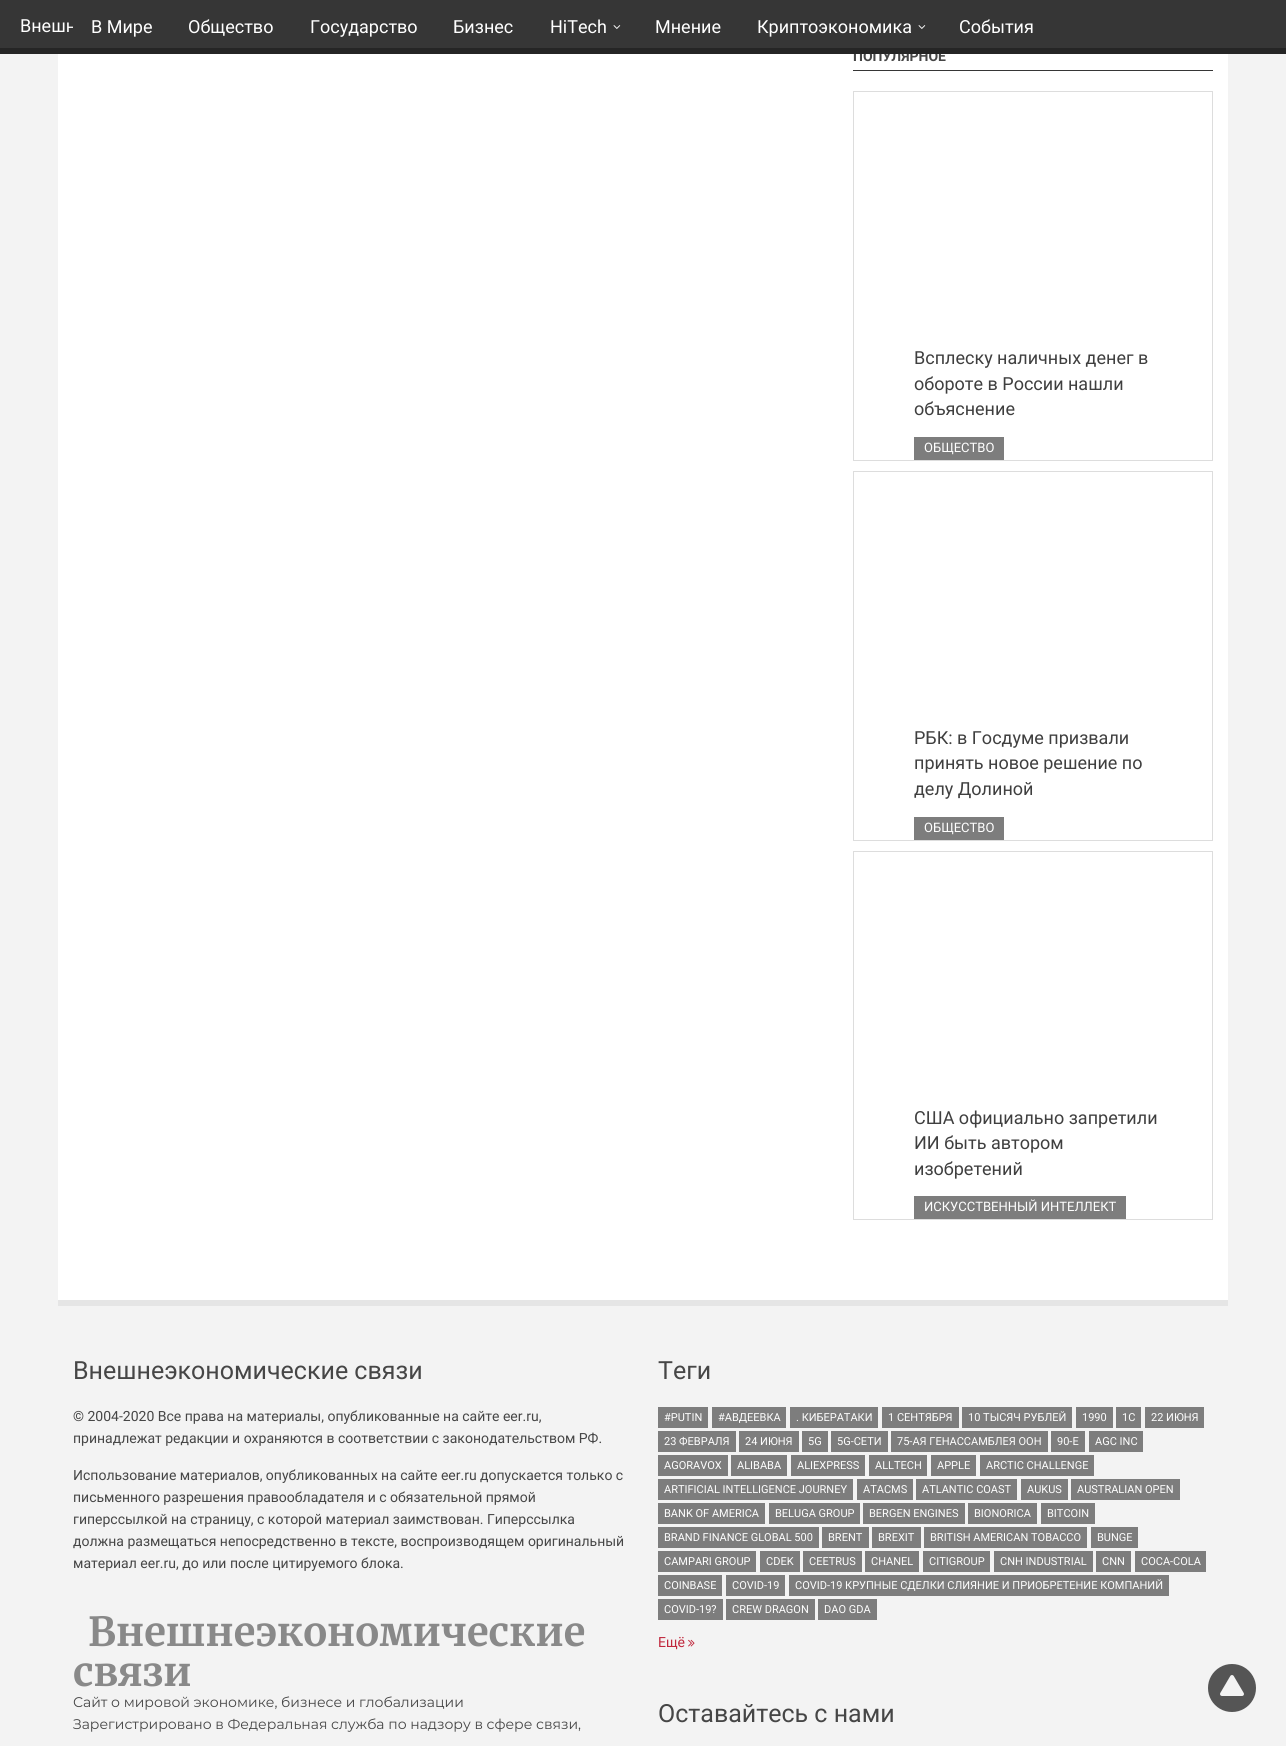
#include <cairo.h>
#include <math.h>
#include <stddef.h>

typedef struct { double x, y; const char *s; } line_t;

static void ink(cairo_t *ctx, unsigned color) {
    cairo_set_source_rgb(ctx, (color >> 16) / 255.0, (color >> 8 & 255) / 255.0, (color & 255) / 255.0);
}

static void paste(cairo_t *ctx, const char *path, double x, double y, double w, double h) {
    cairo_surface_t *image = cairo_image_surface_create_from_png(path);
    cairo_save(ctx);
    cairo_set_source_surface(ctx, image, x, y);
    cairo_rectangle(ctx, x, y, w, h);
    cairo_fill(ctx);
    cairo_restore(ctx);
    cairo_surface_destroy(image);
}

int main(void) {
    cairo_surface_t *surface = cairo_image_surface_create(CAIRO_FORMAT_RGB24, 1286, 1746);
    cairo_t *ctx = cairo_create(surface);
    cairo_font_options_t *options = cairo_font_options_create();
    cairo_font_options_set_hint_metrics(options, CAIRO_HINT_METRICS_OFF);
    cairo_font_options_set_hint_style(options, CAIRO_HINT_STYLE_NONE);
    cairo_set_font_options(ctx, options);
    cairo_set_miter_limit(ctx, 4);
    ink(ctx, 0xF3F3F3);
    cairo_paint(ctx);
    ink(ctx, 0x363636);
    cairo_rectangle(ctx, 0, 0, 1286, 48);
    cairo_fill(ctx);
    ink(ctx, 0xFFFFFF);
    cairo_rectangle(ctx, 58, 54, 1170, 1246);
    cairo_fill(ctx);
    cairo_select_font_face(ctx, "Roboto", CAIRO_FONT_SLANT_NORMAL, CAIRO_FONT_WEIGHT_BOLD);
    cairo_set_font_size(ctx, 14);
    ink(ctx, 0x464646);
    cairo_move_to(ctx, 853, 61);
    cairo_show_text(ctx, "ПОПУЛЯРНОЕ");
    ink(ctx, 0x252525);
    cairo_rectangle(ctx, 0, 48, 1286, 6);
    cairo_fill(ctx);
    cairo_select_font_face(ctx, "Roboto", CAIRO_FONT_SLANT_NORMAL, CAIRO_FONT_WEIGHT_NORMAL);
    cairo_set_font_size(ctx, 18);
    ink(ctx, 0xFFFFFF);
    cairo_move_to(ctx, 20, 32);
    cairo_show_text(ctx, "Внешн");
    ink(ctx, 0x363636);
    cairo_rectangle(ctx, 73, 22, 2, 10);
    cairo_fill(ctx);
    ink(ctx, 0xFFFFFF);
    {
        static const line_t items[] = {
            {91, 33, "В Мире"},
            {188, 33, "Общество"},
            {310, 33, "Государство"},
            {453, 33, "Бизнес"},
            {550, 33, "HiTech"},
        };
        for (size_t i = 0; i < sizeof items / sizeof *items; i++) {
            cairo_move_to(ctx, items[i].x, items[i].y);
            cairo_show_text(ctx, items[i].s);
        }
    }
    paste(ctx, "media/1.png", 613, 25, 8, 4);
    cairo_move_to(ctx, 655, 33);
    cairo_show_text(ctx, "Мнение");
    cairo_move_to(ctx, 757, 33);
    cairo_show_text(ctx, "Криптоэкономика");
    paste(ctx, "media/1.png", 918, 25, 8, 4);
    cairo_move_to(ctx, 959, 33);
    cairo_show_text(ctx, "События");
    ink(ctx, 0xE5E5E5);
    cairo_rectangle(ctx, 58, 1300, 1170, 6);
    cairo_fill(ctx);
    ink(ctx, 0x363636);
    cairo_rectangle(ctx, 853, 70, 360, 1);
    cairo_fill(ctx);
    cairo_rectangle(ctx, 853.5, 91.5, 359, 369);
    ink(ctx, 0xDDDDDD);
    cairo_set_line_width(ctx, 1);
    cairo_stroke(ctx);
    ink(ctx, 0x3F3F3F);
    {
        static const line_t items[] = {
            {914, 364, "Всплеску наличных денег в"},
            {914, 390, "обороте в России нашли"},
            {914, 415, "объяснение"},
        };
        for (size_t i = 0; i < sizeof items / sizeof *items; i++) {
            cairo_move_to(ctx, items[i].x, items[i].y);
            cairo_show_text(ctx, items[i].s);
        }
    }
    ink(ctx, 0x7D7D7D);
    cairo_rectangle(ctx, 914, 437, 90, 23);
    cairo_fill(ctx);
    cairo_set_font_size(ctx, 13);
    ink(ctx, 0xFFFFFF);
    cairo_move_to(ctx, 924, 452);
    cairo_show_text(ctx, "ОБЩЕСТВО");
    cairo_rectangle(ctx, 853.5, 471.5, 359, 369);
    ink(ctx, 0xDDDDDD);
    cairo_stroke(ctx);
    cairo_set_font_size(ctx, 18);
    ink(ctx, 0x3F3F3F);
    {
        static const line_t items[] = {
            {914, 744, "РБК: в Госдуме призвали"},
            {914, 769, "принять новое решение по"},
            {914, 795, "делу Долиной"},
        };
        for (size_t i = 0; i < sizeof items / sizeof *items; i++) {
            cairo_move_to(ctx, items[i].x, items[i].y);
            cairo_show_text(ctx, items[i].s);
        }
    }
    ink(ctx, 0x7D7D7D);
    cairo_rectangle(ctx, 914, 817, 90, 23);
    cairo_fill(ctx);
    cairo_set_font_size(ctx, 13);
    ink(ctx, 0xFFFFFF);
    cairo_move_to(ctx, 924, 832);
    cairo_show_text(ctx, "ОБЩЕСТВО");
    cairo_rectangle(ctx, 853.5, 851.5, 359, 368);
    ink(ctx, 0xDDDDDD);
    cairo_stroke(ctx);
    cairo_set_font_size(ctx, 18);
    ink(ctx, 0x3F3F3F);
    {
        static const line_t items[] = {
            {914, 1124, "США официально запретили"},
            {914, 1149, "ИИ быть автором"},
            {914, 1175, "изобретений"},
        };
        for (size_t i = 0; i < sizeof items / sizeof *items; i++) {
            cairo_move_to(ctx, items[i].x, items[i].y);
            cairo_show_text(ctx, items[i].s);
        }
    }
    ink(ctx, 0x7D7D7D);
    cairo_rectangle(ctx, 914, 1196, 212, 23);
    cairo_fill(ctx);
    cairo_set_font_size(ctx, 13);
    ink(ctx, 0xFFFFFF);
    cairo_move_to(ctx, 924, 1211);
    cairo_show_text(ctx, "ИСКУССТВЕННЫЙ ИНТЕЛЛЕКТ");
    cairo_set_font_size(ctx, 25);
    ink(ctx, 0x464646);
    cairo_move_to(ctx, 73, 1379);
    cairo_show_text(ctx, "Внешнеэкономические связи");
    cairo_set_font_size(ctx, 14);
    {
        static const line_t items[] = {
            {73, 1421, "© 2004-2020 Все права на материалы, опубликованные на сайте eer.ru,"},
            {73, 1443, "принадлежат редакции и охраняются в соответствии с законодательством РФ."},
            {73, 1480, "Использование материалов, опубликованных на сайте eer.ru допускается только с"},
            {73, 1502, "письменного разрешения правообладателя и с обязательной прямой"},
            {73, 1524, "гиперссылкой на страницу, с которой материал заимствован. Гиперссылка"},
            {73, 1546, "должна размещаться непосредственно в тексте, воспроизводящем оригинальный"},
            {73, 1568, "материал eer.ru, до или после цитируемого блока."},
        };
        for (size_t i = 0; i < sizeof items / sizeof *items; i++) {
            cairo_move_to(ctx, items[i].x, items[i].y);
            cairo_show_text(ctx, items[i].s);
        }
    }
    cairo_select_font_face(ctx, "Merriweather", CAIRO_FONT_SLANT_NORMAL, CAIRO_FONT_WEIGHT_BOLD);
    cairo_set_font_size(ctx, 40);
    ink(ctx, 0x898989);
    cairo_move_to(ctx, 88, 1646);
    cairo_show_text(ctx, "Внешнеэкономические");
    cairo_move_to(ctx, 73, 1686);
    cairo_show_text(ctx, "связи");
    cairo_select_font_face(ctx, "Montserrat", CAIRO_FONT_SLANT_NORMAL, CAIRO_FONT_WEIGHT_NORMAL);
    cairo_set_font_size(ctx, 14);
    ink(ctx, 0x464646);
    cairo_move_to(ctx, 73, 1707);
    cairo_show_text(ctx, "Сайт о мировой экономике, бизнесе и глобализации");
    cairo_move_to(ctx, 73, 1729);
    cairo_show_text(ctx, "Зарегистрировано в Федеральная служба по надзору в сфере связи,");
    cairo_select_font_face(ctx, "Roboto", CAIRO_FONT_SLANT_NORMAL, CAIRO_FONT_WEIGHT_NORMAL);
    cairo_set_font_size(ctx, 25);
    cairo_move_to(ctx, 658, 1379);
    cairo_show_text(ctx, "Теги");
    ink(ctx, 0x7D7D7D);
    cairo_rectangle(ctx, 658, 1407, 50, 21);
    cairo_fill(ctx);
    cairo_set_font_size(ctx, 11);
    ink(ctx, 0xFFFFFF);
    cairo_move_to(ctx, 664, 1421);
    cairo_show_text(ctx, "#PUTIN");
    ink(ctx, 0x7D7D7D);
    cairo_rectangle(ctx, 712, 1407, 74, 21);
    cairo_fill(ctx);
    ink(ctx, 0xFFFFFF);
    cairo_move_to(ctx, 718, 1421);
    cairo_show_text(ctx, "#АВДЕЕВКА");
    ink(ctx, 0x7D7D7D);
    cairo_rectangle(ctx, 790, 1407, 88, 21);
    cairo_fill(ctx);
    ink(ctx, 0xFFFFFF);
    cairo_move_to(ctx, 796, 1421);
    cairo_show_text(ctx, ". КИБЕРАТАКИ");
    ink(ctx, 0x7D7D7D);
    cairo_rectangle(ctx, 882, 1407, 77, 21);
    cairo_fill(ctx);
    ink(ctx, 0xFFFFFF);
    cairo_move_to(ctx, 888, 1421);
    cairo_show_text(ctx, "1 СЕНТЯБРЯ");
    ink(ctx, 0x7D7D7D);
    cairo_rectangle(ctx, 962, 1407, 110, 21);
    cairo_fill(ctx);
    ink(ctx, 0xFFFFFF);
    cairo_move_to(ctx, 968, 1421);
    cairo_show_text(ctx, "10 ТЫСЯЧ РУБЛЕЙ");
    ink(ctx, 0x7D7D7D);
    cairo_rectangle(ctx, 1076, 1407, 37, 21);
    cairo_fill(ctx);
    ink(ctx, 0xFFFFFF);
    cairo_move_to(ctx, 1082, 1421);
    cairo_show_text(ctx, "1990");
    ink(ctx, 0x7D7D7D);
    cairo_rectangle(ctx, 1116, 1407, 25, 21);
    cairo_fill(ctx);
    ink(ctx, 0xFFFFFF);
    cairo_move_to(ctx, 1122, 1421);
    cairo_show_text(ctx, "1С");
    ink(ctx, 0x7D7D7D);
    cairo_rectangle(ctx, 1145, 1407, 59, 21);
    cairo_fill(ctx);
    ink(ctx, 0xFFFFFF);
    cairo_move_to(ctx, 1151, 1421);
    cairo_show_text(ctx, "22 ИЮНЯ");
    ink(ctx, 0x7D7D7D);
    cairo_rectangle(ctx, 658, 1431, 78, 21);
    cairo_fill(ctx);
    ink(ctx, 0xFFFFFF);
    cairo_move_to(ctx, 664, 1445);
    cairo_show_text(ctx, "23 ФЕВРАЛЯ");
    ink(ctx, 0x7D7D7D);
    cairo_rectangle(ctx, 739, 1431, 60, 21);
    cairo_fill(ctx);
    ink(ctx, 0xFFFFFF);
    cairo_move_to(ctx, 745, 1445);
    cairo_show_text(ctx, "24 ИЮНЯ");
    ink(ctx, 0x7D7D7D);
    cairo_rectangle(ctx, 802, 1431, 26, 21);
    cairo_fill(ctx);
    ink(ctx, 0xFFFFFF);
    cairo_move_to(ctx, 808, 1445);
    cairo_show_text(ctx, "5G");
    ink(ctx, 0x7D7D7D);
    cairo_rectangle(ctx, 831, 1431, 57, 21);
    cairo_fill(ctx);
    ink(ctx, 0xFFFFFF);
    cairo_move_to(ctx, 837, 1445);
    cairo_show_text(ctx, "5G-СЕТИ");
    ink(ctx, 0x7D7D7D);
    cairo_rectangle(ctx, 891, 1431, 157, 21);
    cairo_fill(ctx);
    ink(ctx, 0xFFFFFF);
    cairo_move_to(ctx, 897, 1445);
    cairo_show_text(ctx, "75-АЯ ГЕНАССАМБЛЕЯ ООН");
    ink(ctx, 0x7D7D7D);
    cairo_rectangle(ctx, 1051, 1431, 34, 21);
    cairo_fill(ctx);
    ink(ctx, 0xFFFFFF);
    cairo_move_to(ctx, 1057, 1445);
    cairo_show_text(ctx, "90-Е");
    ink(ctx, 0x7D7D7D);
    cairo_rectangle(ctx, 1089, 1431, 54, 21);
    cairo_fill(ctx);
    ink(ctx, 0xFFFFFF);
    cairo_move_to(ctx, 1095, 1445);
    cairo_show_text(ctx, "AGC INC");
    ink(ctx, 0x7D7D7D);
    cairo_rectangle(ctx, 658, 1455, 70, 21);
    cairo_fill(ctx);
    ink(ctx, 0xFFFFFF);
    cairo_move_to(ctx, 664, 1469);
    cairo_show_text(ctx, "AGORAVOX");
    ink(ctx, 0x7D7D7D);
    cairo_rectangle(ctx, 731, 1455, 56, 21);
    cairo_fill(ctx);
    ink(ctx, 0xFFFFFF);
    cairo_move_to(ctx, 737, 1469);
    cairo_show_text(ctx, "ALIBABA");
    ink(ctx, 0x7D7D7D);
    cairo_rectangle(ctx, 791, 1455, 74, 21);
    cairo_fill(ctx);
    ink(ctx, 0xFFFFFF);
    cairo_move_to(ctx, 797, 1469);
    cairo_show_text(ctx, "ALIEXPRESS");
    ink(ctx, 0x7D7D7D);
    cairo_rectangle(ctx, 869, 1455, 58, 21);
    cairo_fill(ctx);
    ink(ctx, 0xFFFFFF);
    cairo_move_to(ctx, 875, 1469);
    cairo_show_text(ctx, "ALLTECH");
    ink(ctx, 0x7D7D7D);
    cairo_rectangle(ctx, 931, 1455, 45, 21);
    cairo_fill(ctx);
    ink(ctx, 0xFFFFFF);
    cairo_move_to(ctx, 937, 1469);
    cairo_show_text(ctx, "APPLE");
    ink(ctx, 0x7D7D7D);
    cairo_rectangle(ctx, 980, 1455, 114, 21);
    cairo_fill(ctx);
    ink(ctx, 0xFFFFFF);
    cairo_move_to(ctx, 986, 1469);
    cairo_show_text(ctx, "ARCTIC CHALLENGE");
    ink(ctx, 0x7D7D7D);
    cairo_rectangle(ctx, 658, 1479, 195, 21);
    cairo_fill(ctx);
    ink(ctx, 0xFFFFFF);
    cairo_move_to(ctx, 664, 1493);
    cairo_show_text(ctx, "ARTIFICIAL INTELLIGENCE JOURNEY");
    ink(ctx, 0x7D7D7D);
    cairo_rectangle(ctx, 857, 1479, 56, 21);
    cairo_fill(ctx);
    ink(ctx, 0xFFFFFF);
    cairo_move_to(ctx, 863, 1493);
    cairo_show_text(ctx, "ATACMS");
    ink(ctx, 0x7D7D7D);
    cairo_rectangle(ctx, 916, 1479, 101, 21);
    cairo_fill(ctx);
    ink(ctx, 0xFFFFFF);
    cairo_move_to(ctx, 922, 1493);
    cairo_show_text(ctx, "ATLANTIC COAST");
    ink(ctx, 0x7D7D7D);
    cairo_rectangle(ctx, 1021, 1479, 47, 21);
    cairo_fill(ctx);
    ink(ctx, 0xFFFFFF);
    cairo_move_to(ctx, 1027, 1493);
    cairo_show_text(ctx, "AUKUS");
    ink(ctx, 0x7D7D7D);
    cairo_rectangle(ctx, 1071, 1479, 109, 21);
    cairo_fill(ctx);
    ink(ctx, 0xFFFFFF);
    cairo_move_to(ctx, 1077, 1493);
    cairo_show_text(ctx, "AUSTRALIAN OPEN");
    ink(ctx, 0x7D7D7D);
    cairo_rectangle(ctx, 658, 1503, 107, 21);
    cairo_fill(ctx);
    ink(ctx, 0xFFFFFF);
    cairo_move_to(ctx, 664, 1517);
    cairo_show_text(ctx, "BANK OF AMERICA");
    ink(ctx, 0x7D7D7D);
    cairo_rectangle(ctx, 769, 1503, 91, 21);
    cairo_fill(ctx);
    ink(ctx, 0xFFFFFF);
    cairo_move_to(ctx, 775, 1517);
    cairo_show_text(ctx, "BELUGA GROUP");
    ink(ctx, 0x7D7D7D);
    cairo_rectangle(ctx, 863, 1503, 102, 21);
    cairo_fill(ctx);
    ink(ctx, 0xFFFFFF);
    cairo_move_to(ctx, 869, 1517);
    cairo_show_text(ctx, "BERGEN ENGINES");
    ink(ctx, 0x7D7D7D);
    cairo_rectangle(ctx, 968, 1503, 69, 21);
    cairo_fill(ctx);
    ink(ctx, 0xFFFFFF);
    cairo_move_to(ctx, 974, 1517);
    cairo_show_text(ctx, "BIONORICA");
    ink(ctx, 0x7D7D7D);
    cairo_rectangle(ctx, 1041, 1503, 54, 21);
    cairo_fill(ctx);
    ink(ctx, 0xFFFFFF);
    cairo_move_to(ctx, 1047, 1517);
    cairo_show_text(ctx, "BITCOIN");
    ink(ctx, 0x7D7D7D);
    cairo_rectangle(ctx, 658, 1527, 161, 21);
    cairo_fill(ctx);
    ink(ctx, 0xFFFFFF);
    cairo_move_to(ctx, 664, 1541);
    cairo_show_text(ctx, "BRAND FINANCE GLOBAL 500");
    ink(ctx, 0x7D7D7D);
    cairo_rectangle(ctx, 822, 1527, 47, 21);
    cairo_fill(ctx);
    ink(ctx, 0xFFFFFF);
    cairo_move_to(ctx, 828, 1541);
    cairo_show_text(ctx, "BRENT");
    ink(ctx, 0x7D7D7D);
    cairo_rectangle(ctx, 872, 1527, 49, 21);
    cairo_fill(ctx);
    ink(ctx, 0xFFFFFF);
    cairo_move_to(ctx, 878, 1541);
    cairo_show_text(ctx, "BREXIT");
    ink(ctx, 0x7D7D7D);
    cairo_rectangle(ctx, 924, 1527, 163, 21);
    cairo_fill(ctx);
    ink(ctx, 0xFFFFFF);
    cairo_move_to(ctx, 930, 1541);
    cairo_show_text(ctx, "BRITISH AMERICAN TOBACCO");
    ink(ctx, 0x7D7D7D);
    cairo_rectangle(ctx, 1091, 1527, 47, 21);
    cairo_fill(ctx);
    ink(ctx, 0xFFFFFF);
    cairo_move_to(ctx, 1097, 1541);
    cairo_show_text(ctx, "BUNGE");
    ink(ctx, 0x7D7D7D);
    cairo_rectangle(ctx, 658, 1551, 98, 21);
    cairo_fill(ctx);
    ink(ctx, 0xFFFFFF);
    cairo_move_to(ctx, 664, 1565);
    cairo_show_text(ctx, "CAMPARI GROUP");
    ink(ctx, 0x7D7D7D);
    cairo_rectangle(ctx, 760, 1551, 40, 21);
    cairo_fill(ctx);
    ink(ctx, 0xFFFFFF);
    cairo_move_to(ctx, 766, 1565);
    cairo_show_text(ctx, "CDEK");
    ink(ctx, 0x7D7D7D);
    cairo_rectangle(ctx, 803, 1551, 59, 21);
    cairo_fill(ctx);
    ink(ctx, 0xFFFFFF);
    cairo_move_to(ctx, 809, 1565);
    cairo_show_text(ctx, "CEETRUS");
    ink(ctx, 0x7D7D7D);
    cairo_rectangle(ctx, 865, 1551, 54, 21);
    cairo_fill(ctx);
    ink(ctx, 0xFFFFFF);
    cairo_move_to(ctx, 871, 1565);
    cairo_show_text(ctx, "CHANEL");
    ink(ctx, 0x7D7D7D);
    cairo_rectangle(ctx, 923, 1551, 67, 21);
    cairo_fill(ctx);
    ink(ctx, 0xFFFFFF);
    cairo_move_to(ctx, 929, 1565);
    cairo_show_text(ctx, "CITIGROUP");
    ink(ctx, 0x7D7D7D);
    cairo_rectangle(ctx, 994, 1551, 99, 21);
    cairo_fill(ctx);
    ink(ctx, 0xFFFFFF);
    cairo_move_to(ctx, 1000, 1565);
    cairo_show_text(ctx, "CNH INDUSTRIAL");
    ink(ctx, 0x7D7D7D);
    cairo_rectangle(ctx, 1096, 1551, 35, 21);
    cairo_fill(ctx);
    ink(ctx, 0xFFFFFF);
    cairo_move_to(ctx, 1102, 1565);
    cairo_show_text(ctx, "CNN");
    ink(ctx, 0x7D7D7D);
    cairo_rectangle(ctx, 1135, 1551, 71, 21);
    cairo_fill(ctx);
    ink(ctx, 0xFFFFFF);
    cairo_move_to(ctx, 1141, 1565);
    cairo_show_text(ctx, "COCA-COLA");
    ink(ctx, 0x7D7D7D);
    cairo_rectangle(ctx, 658, 1575, 64, 21);
    cairo_fill(ctx);
    ink(ctx, 0xFFFFFF);
    cairo_move_to(ctx, 664, 1589);
    cairo_show_text(ctx, "COINBASE");
    ink(ctx, 0x7D7D7D);
    cairo_rectangle(ctx, 726, 1575, 59, 21);
    cairo_fill(ctx);
    ink(ctx, 0xFFFFFF);
    cairo_move_to(ctx, 732, 1589);
    cairo_show_text(ctx, "COVID-19");
    ink(ctx, 0x7D7D7D);
    cairo_rectangle(ctx, 789, 1575, 380, 21);
    cairo_fill(ctx);
    ink(ctx, 0xFFFFFF);
    cairo_move_to(ctx, 795, 1589);
    cairo_show_text(ctx, "COVID-19 КРУПНЫЕ СДЕЛКИ СЛИЯНИЕ И ПРИОБРЕТЕНИЕ КОМПАНИЙ");
    ink(ctx, 0x7D7D7D);
    cairo_rectangle(ctx, 658, 1599, 65, 21);
    cairo_fill(ctx);
    ink(ctx, 0xFFFFFF);
    cairo_move_to(ctx, 664, 1613);
    cairo_show_text(ctx, "COVID-19?");
    ink(ctx, 0x7D7D7D);
    cairo_rectangle(ctx, 726, 1599, 89, 21);
    cairo_fill(ctx);
    ink(ctx, 0xFFFFFF);
    cairo_move_to(ctx, 732, 1613);
    cairo_show_text(ctx, "CREW DRAGON");
    ink(ctx, 0x7D7D7D);
    cairo_rectangle(ctx, 818, 1599, 59, 21);
    cairo_fill(ctx);
    ink(ctx, 0xFFFFFF);
    cairo_move_to(ctx, 824, 1613);
    cairo_show_text(ctx, "DAO GDA");
    cairo_set_font_size(ctx, 14);
    ink(ctx, 0xC0273C);
    cairo_move_to(ctx, 658, 1647);
    cairo_show_text(ctx, "Ещё");
    paste(ctx, "media/2.png", 688, 1639, 7, 8);
    cairo_set_font_size(ctx, 25);
    ink(ctx, 0x464646);
    cairo_move_to(ctx, 658, 1722);
    cairo_show_text(ctx, "Оставайтесь с нами");
    paste(ctx, "media/3.png", 1208, 1664, 48, 48);
    cairo_surface_write_to_png(surface, "image.png");
    cairo_font_options_destroy(options);
    cairo_destroy(ctx);
    cairo_surface_destroy(surface);
    return 0;
}
